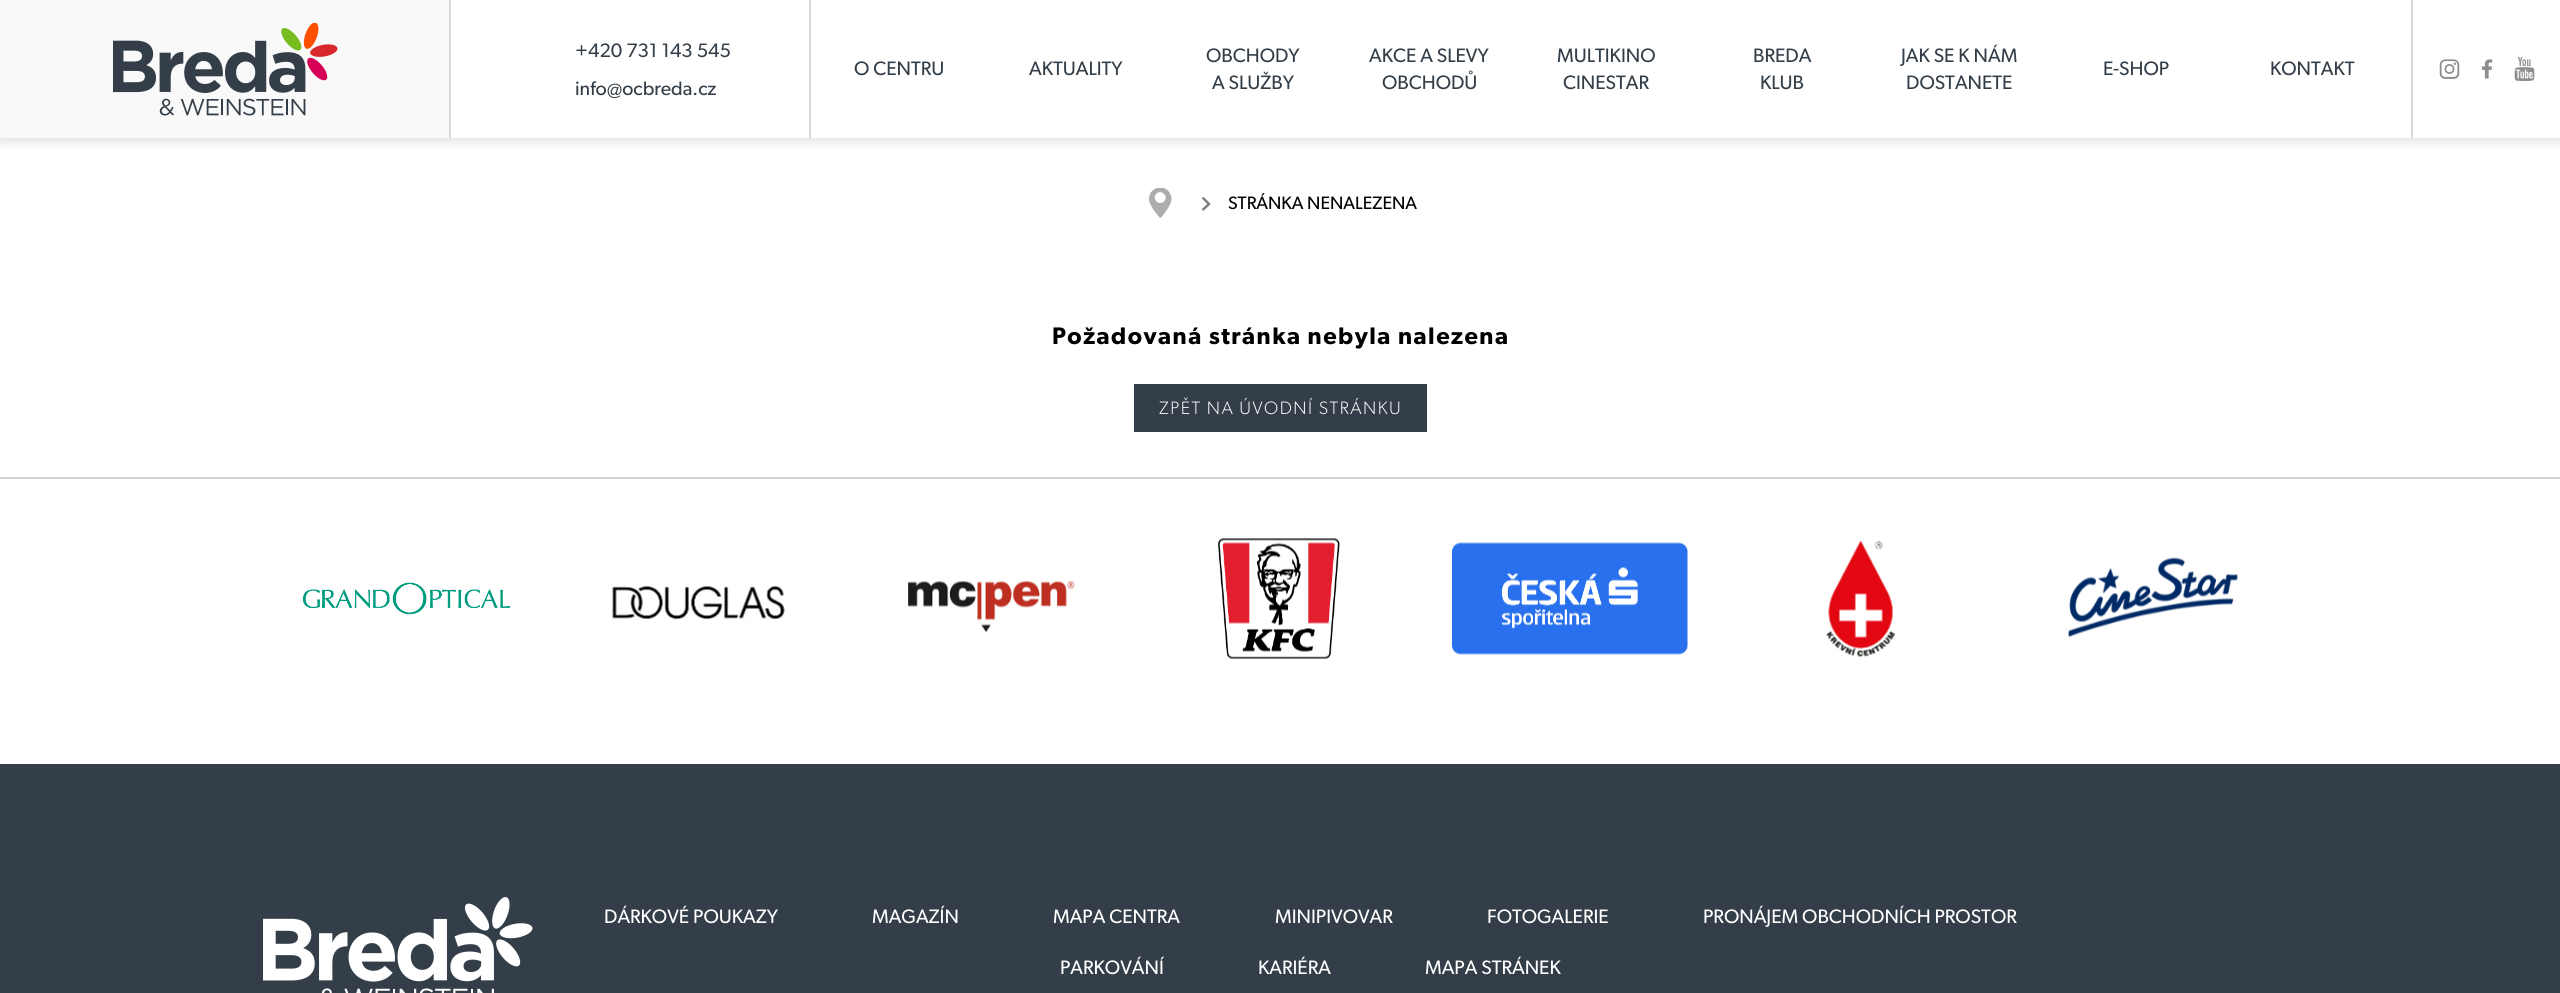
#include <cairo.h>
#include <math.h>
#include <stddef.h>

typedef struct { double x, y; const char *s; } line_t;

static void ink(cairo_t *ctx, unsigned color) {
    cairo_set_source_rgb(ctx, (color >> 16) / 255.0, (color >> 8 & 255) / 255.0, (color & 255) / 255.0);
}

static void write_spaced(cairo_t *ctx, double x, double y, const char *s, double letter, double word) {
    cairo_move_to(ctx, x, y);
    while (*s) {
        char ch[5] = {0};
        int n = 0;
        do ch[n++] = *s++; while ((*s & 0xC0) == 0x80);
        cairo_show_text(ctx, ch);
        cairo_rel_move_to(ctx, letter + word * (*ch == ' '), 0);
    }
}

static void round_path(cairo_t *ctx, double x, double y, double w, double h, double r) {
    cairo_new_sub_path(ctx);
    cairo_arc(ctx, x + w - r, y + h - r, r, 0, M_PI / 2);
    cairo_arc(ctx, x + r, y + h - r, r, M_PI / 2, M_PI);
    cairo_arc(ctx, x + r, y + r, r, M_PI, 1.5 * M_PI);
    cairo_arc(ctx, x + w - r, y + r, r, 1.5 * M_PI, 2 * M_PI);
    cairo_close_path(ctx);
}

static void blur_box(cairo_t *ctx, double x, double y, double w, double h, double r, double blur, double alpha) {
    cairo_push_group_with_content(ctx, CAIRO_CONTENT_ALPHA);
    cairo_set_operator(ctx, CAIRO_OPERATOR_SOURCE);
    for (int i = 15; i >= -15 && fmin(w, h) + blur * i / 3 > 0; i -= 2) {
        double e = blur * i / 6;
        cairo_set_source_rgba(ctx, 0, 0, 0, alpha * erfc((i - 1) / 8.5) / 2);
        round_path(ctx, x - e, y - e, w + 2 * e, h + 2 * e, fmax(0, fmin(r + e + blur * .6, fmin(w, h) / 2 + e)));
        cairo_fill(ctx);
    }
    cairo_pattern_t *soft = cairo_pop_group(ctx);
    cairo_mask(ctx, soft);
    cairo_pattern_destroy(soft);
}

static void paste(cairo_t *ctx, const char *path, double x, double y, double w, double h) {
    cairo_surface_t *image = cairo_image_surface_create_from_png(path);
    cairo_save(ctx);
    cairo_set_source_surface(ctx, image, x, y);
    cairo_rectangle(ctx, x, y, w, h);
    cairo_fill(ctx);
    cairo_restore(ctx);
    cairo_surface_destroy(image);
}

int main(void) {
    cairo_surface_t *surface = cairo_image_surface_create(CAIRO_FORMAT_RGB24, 2560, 993);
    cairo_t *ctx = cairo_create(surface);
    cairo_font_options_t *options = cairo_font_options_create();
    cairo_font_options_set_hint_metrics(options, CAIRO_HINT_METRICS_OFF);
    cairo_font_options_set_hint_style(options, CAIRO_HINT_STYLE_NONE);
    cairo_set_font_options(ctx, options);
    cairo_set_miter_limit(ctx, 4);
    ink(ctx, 0xFFFFFF);
    cairo_paint(ctx);
    ink(ctx, 0x000000);
    blur_box(ctx, 0, 0, 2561, 138, 0, 7.5, 0.2);
    ink(ctx, 0xFFFFFF);
    cairo_rectangle(ctx, 451, 0, 2109, 138);
    cairo_fill(ctx);
    ink(ctx, 0xF9F9F9);
    cairo_rectangle(ctx, 0, 0, 449, 138);
    cairo_fill(ctx);
    paste(ctx, "media/1.png", 113, 23, 225, 93);
    ink(ctx, 0xDADADB);
    cairo_rectangle(ctx, 449, 0, 2, 138);
    cairo_fill(ctx);
    cairo_select_font_face(ctx, "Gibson", CAIRO_FONT_SLANT_NORMAL, CAIRO_FONT_WEIGHT_NORMAL);
    cairo_set_font_size(ctx, 19.5);
    ink(ctx, 0x333E48);
    cairo_move_to(ctx, 575, 57);
    cairo_show_text(ctx, "+420 731 143 545");
    cairo_move_to(ctx, 575, 95);
    cairo_show_text(ctx, "info@ocbreda.cz");
    ink(ctx, 0xDADADB);
    cairo_rectangle(ctx, 809, 0, 2, 138);
    cairo_fill(ctx);
    ink(ctx, 0x333E48);
    {
        static const line_t items[] = {
            {854, 75, "O CENTRU"},
            {1029, 75, "AKTUALITY"},
            {1206, 62, "OBCHODY"},
            {1212, 89, "A SLUŽBY"},
            {1369, 62, "AKCE A SLEVY"},
            {1382, 89, "OBCHODŮ"},
            {1557, 62, "MULTIKINO"},
            {1563, 89, "CINESTAR"},
            {1753, 62, "BREDA"},
            {1760, 89, "KLUB"},
            {1901, 62, "JAK SE K NÁM"},
            {1906, 89, "DOSTANETE"},
            {2103, 75, "E-SHOP"},
            {2270, 75, "KONTAKT"},
        };
        for (size_t i = 0; i < sizeof items / sizeof *items; i++) {
            cairo_move_to(ctx, items[i].x, items[i].y);
            cairo_show_text(ctx, items[i].s);
        }
    }
    ink(ctx, 0xDADADB);
    cairo_rectangle(ctx, 2411, 0, 2, 138);
    cairo_fill(ctx);
    paste(ctx, "media/2.png", 2439, 59, 21, 20);
    paste(ctx, "media/3.png", 2481, 59, 12, 20);
    paste(ctx, "media/4.png", 2514, 57, 21, 24);
    cairo_save(ctx);
    cairo_rectangle(ctx, 1202, 197, 9, 15);
    cairo_clip(ctx);
    cairo_new_path(ctx);
    cairo_move_to(ctx, 1202.5, 197.5);
    cairo_line_to(ctx, 1209, 204);
    cairo_line_to(ctx, 1202.5, 210);
    ink(ctx, 0x7C7C7C);
    cairo_set_line_width(ctx, 2.4);
    cairo_stroke(ctx);
    cairo_restore(ctx);
    paste(ctx, "media/5.png", 1149, 188, 23, 30);
    cairo_set_font_size(ctx, 18);
    ink(ctx, 0x000000);
    cairo_move_to(ctx, 1228, 209);
    cairo_show_text(ctx, "STRÁNKA NENALEZENA");
    cairo_select_font_face(ctx, "Gibson SemiBold", CAIRO_FONT_SLANT_NORMAL, CAIRO_FONT_WEIGHT_NORMAL);
    cairo_set_font_size(ctx, 24);
    write_spaced(ctx, 1052, 344, "Požadovaná stránka nebyla nalezena", 1.5, 0);
    ink(ctx, 0x333E48);
    cairo_rectangle(ctx, 1134, 384, 293, 48);
    cairo_fill(ctx);
    cairo_select_font_face(ctx, "Gibson Light", CAIRO_FONT_SLANT_NORMAL, CAIRO_FONT_WEIGHT_NORMAL);
    cairo_set_font_size(ctx, 18);
    ink(ctx, 0xFFFFFF);
    write_spaced(ctx, 1159, 414, "ZPĚT NA ÚVODNÍ STRÁNKU", 1.5, 0);
    ink(ctx, 0xD3D3D3);
    cairo_rectangle(ctx, 0, 477, 2560, 2);
    cairo_fill(ctx);
    paste(ctx, "media/6.png", 302, 582, 208, 33);
    paste(ctx, "media/7.png", 612, 586, 173, 34);
    paste(ctx, "media/8.png", 908, 580, 167, 53);
    paste(ctx, "media/9.png", 1218, 538, 122, 121);
    paste(ctx, "media/10.png", 1452, 542, 236, 113);
    paste(ctx, "media/11.png", 1826, 540, 70, 117);
    paste(ctx, "media/12.png", 2068, 557, 170, 80);
    ink(ctx, 0x333E48);
    cairo_rectangle(ctx, 0, 764, 2560, 229);
    cairo_fill(ctx);
    paste(ctx, "media/13.png", 263, 897, 270, 96);
    cairo_select_font_face(ctx, "Gibson", CAIRO_FONT_SLANT_NORMAL, CAIRO_FONT_WEIGHT_NORMAL);
    cairo_set_font_size(ctx, 19.5);
    ink(ctx, 0xFFFFFF);
    {
        static const line_t items[] = {
            {604, 923, "DÁRKOVÉ POUKAZY"},
            {872, 923, "MAGAZÍN"},
            {1053, 923, "MAPA CENTRA"},
            {1275, 923, "MINIPIVOVAR"},
            {1487, 923, "FOTOGALERIE"},
            {1703, 923, "PRONÁJEM OBCHODNÍCH PROSTOR"},
            {1060, 974, "PARKOVÁNÍ"},
            {1258, 974, "KARIÉRA"},
            {1425, 974, "MAPA STRÁNEK"},
        };
        for (size_t i = 0; i < sizeof items / sizeof *items; i++) {
            cairo_move_to(ctx, items[i].x, items[i].y);
            cairo_show_text(ctx, items[i].s);
        }
    }
    cairo_surface_write_to_png(surface, "image.png");
    cairo_font_options_destroy(options);
    cairo_destroy(ctx);
    cairo_surface_destroy(surface);
    return 0;
}
